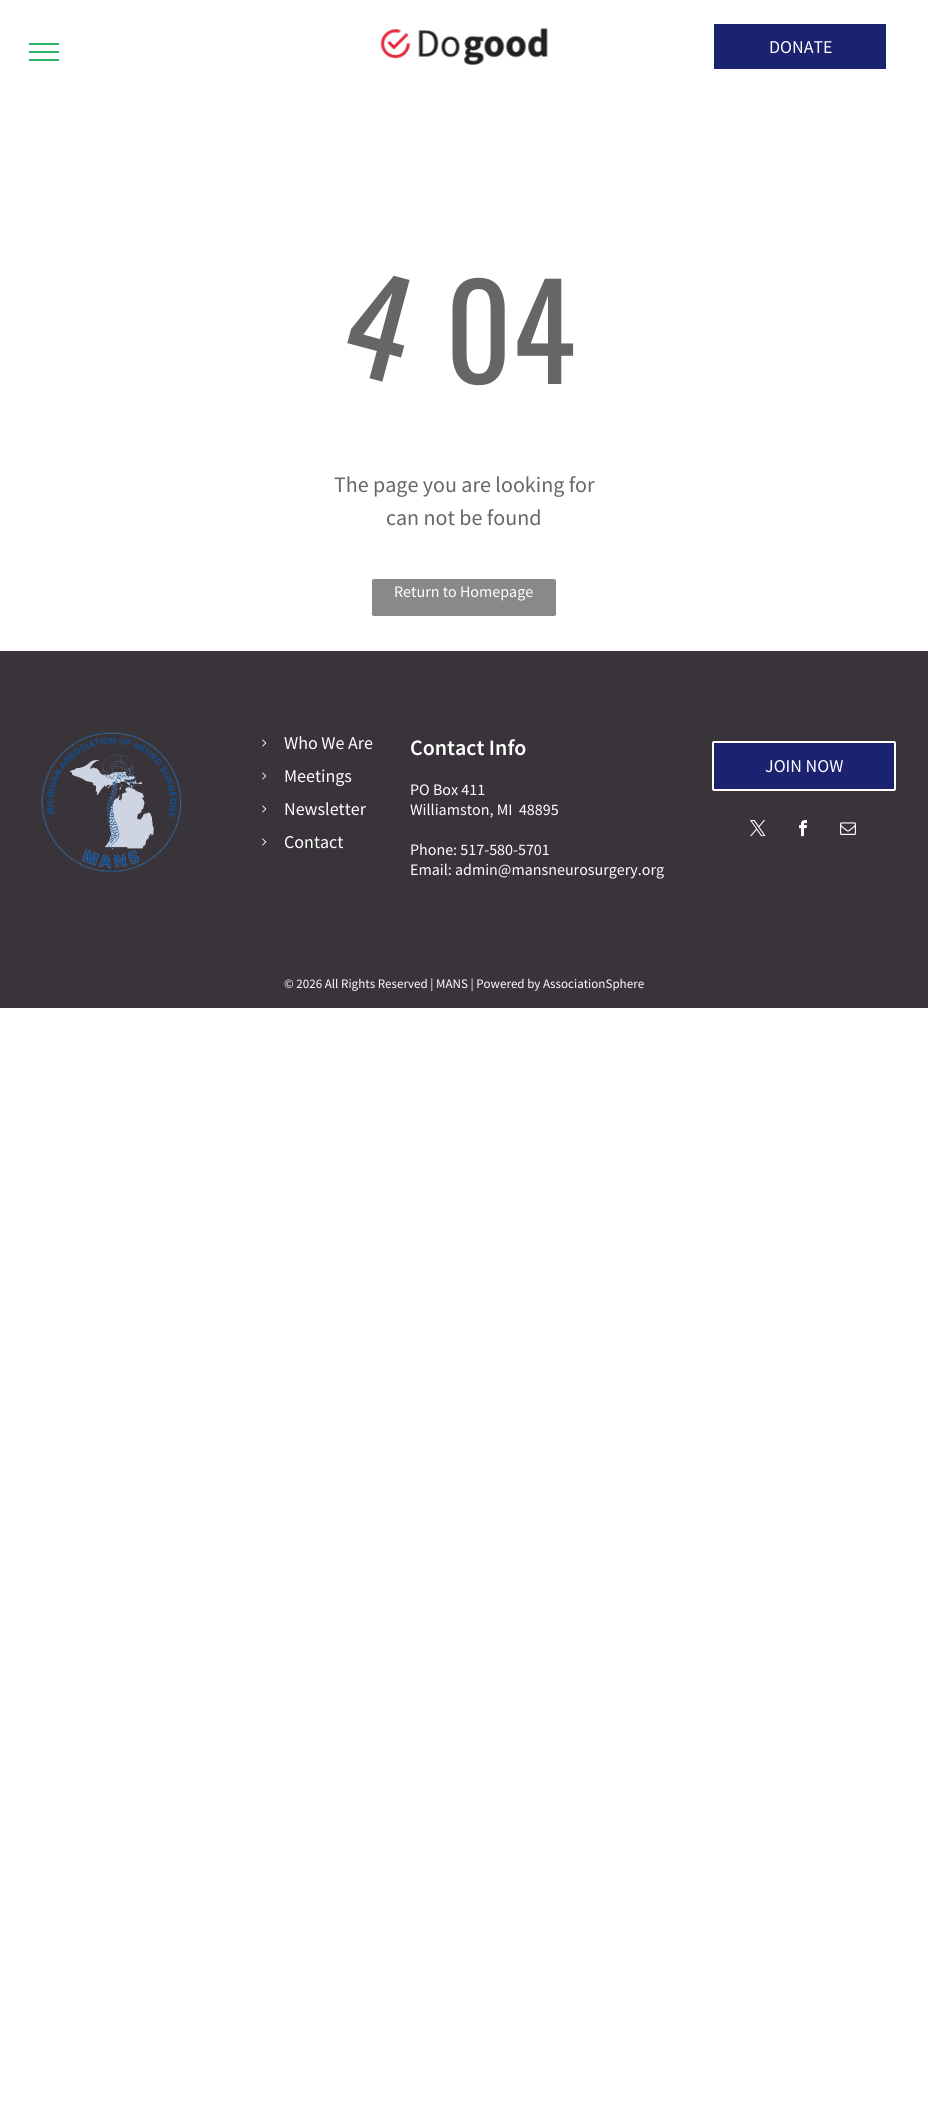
#include <cairo.h>
#include <math.h>
#include <stddef.h>

typedef struct { double x, y; const char *s; } line_t;
typedef struct { double x, y, w, h; unsigned color; } box_t;

static void ink(cairo_t *ctx, unsigned color) {
    cairo_set_source_rgb(ctx, (color >> 16) / 255.0, (color >> 8 & 255) / 255.0, (color & 255) / 255.0);
}

static void round_path(cairo_t *ctx, double x, double y, double w, double h, double r) {
    cairo_new_sub_path(ctx);
    cairo_arc(ctx, x + w - r, y + h - r, r, 0, M_PI / 2);
    cairo_arc(ctx, x + r, y + h - r, r, M_PI / 2, M_PI);
    cairo_arc(ctx, x + r, y + r, r, M_PI, 1.5 * M_PI);
    cairo_arc(ctx, x + w - r, y + r, r, 1.5 * M_PI, 2 * M_PI);
    cairo_close_path(ctx);
}

static void paste(cairo_t *ctx, const char *path, double x, double y, double w, double h) {
    cairo_surface_t *image = cairo_image_surface_create_from_png(path);
    cairo_save(ctx);
    cairo_set_source_surface(ctx, image, x, y);
    cairo_rectangle(ctx, x, y, w, h);
    cairo_fill(ctx);
    cairo_restore(ctx);
    cairo_surface_destroy(image);
}

int main(void) {
    cairo_surface_t *surface = cairo_image_surface_create(CAIRO_FORMAT_RGB24, 928, 2114);
    cairo_t *ctx = cairo_create(surface);
    cairo_font_options_t *options = cairo_font_options_create();
    cairo_font_options_set_hint_metrics(options, CAIRO_HINT_METRICS_OFF);
    cairo_font_options_set_hint_style(options, CAIRO_HINT_STYLE_NONE);
    cairo_set_font_options(ctx, options);
    cairo_set_miter_limit(ctx, 4);
    ink(ctx, 0xFFFFFF);
    cairo_paint(ctx);
    {
        static const box_t items[] = {
            {29, 43, 30, 2, 0x28B467},
            {29, 51, 30, 2, 0x28B467},
            {29, 59, 30, 2, 0x28B467},
        };
        for (size_t i = 0; i < sizeof items / sizeof *items; i++) {
            ink(ctx, items[i].color);
            cairo_rectangle(ctx, items[i].x, items[i].y, items[i].w, items[i].h);
            cairo_fill(ctx);
        }
    }
    paste(ctx, "media/1.png", 380, 28, 168, 37);
    ink(ctx, 0x1B226F);
    round_path(ctx, 713, 23, 174, 47, 1);
    cairo_fill_preserve(ctx);
    ink(ctx, 0xFFFFFF);
    cairo_stroke(ctx);
    cairo_select_font_face(ctx, "Source Sans Pro", CAIRO_FONT_SLANT_NORMAL, CAIRO_FONT_WEIGHT_NORMAL);
    cairo_set_font_size(ctx, 18);
    cairo_move_to(ctx, 769, 53);
    cairo_show_text(ctx, "DONATE");
    cairo_select_font_face(ctx, "Oswald", CAIRO_FONT_SLANT_NORMAL, CAIRO_FONT_WEIGHT_NORMAL);
    cairo_set_font_size(ctx, 130);
    ink(ctx, 0x666666);
    cairo_save(ctx);
    cairo_translate(ctx, 335, 369);
    cairo_rotate(ctx, 15 * M_PI / 180);
    cairo_move_to(ctx, 0, 0);
    cairo_show_text(ctx, "4");
    cairo_restore(ctx);
    cairo_move_to(ctx, 445, 384);
    cairo_show_text(ctx, "04");
    cairo_select_font_face(ctx, "Source Sans Pro", CAIRO_FONT_SLANT_NORMAL, CAIRO_FONT_WEIGHT_NORMAL);
    cairo_set_font_size(ctx, 22);
    cairo_move_to(ctx, 334, 492);
    cairo_show_text(ctx, "The page you are looking for");
    cairo_move_to(ctx, 386, 525);
    cairo_show_text(ctx, "can not be found");
    ink(ctx, 0x898989);
    round_path(ctx, 372, 579, 184, 37, 2);
    cairo_fill(ctx);
    cairo_set_font_size(ctx, 16);
    ink(ctx, 0xFFFFFF);
    cairo_move_to(ctx, 394, 597);
    cairo_show_text(ctx, "Return to Homepage");
    ink(ctx, 0x39343A);
    cairo_rectangle(ctx, 0, 651, 928, 357);
    cairo_fill(ctx);
    paste(ctx, "media/2.png", 41, 732, 141, 141);
    paste(ctx, "media/3.png", 262, 739, 5, 8);
    cairo_set_font_size(ctx, 18);
    ink(ctx, 0xFFFFFF);
    cairo_move_to(ctx, 284, 749);
    cairo_show_text(ctx, "Who We Are");
    paste(ctx, "media/3.png", 262, 772, 5, 8);
    cairo_move_to(ctx, 284, 782);
    cairo_show_text(ctx, "Meetings");
    paste(ctx, "media/3.png", 262, 805, 5, 8);
    cairo_move_to(ctx, 284, 815);
    cairo_show_text(ctx, "Newsletter");
    paste(ctx, "media/3.png", 262, 838, 5, 8);
    cairo_move_to(ctx, 284, 848);
    cairo_show_text(ctx, "Contact");
    cairo_select_font_face(ctx, "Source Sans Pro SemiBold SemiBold", CAIRO_FONT_SLANT_NORMAL, CAIRO_FONT_WEIGHT_NORMAL);
    cairo_set_font_size(ctx, 22);
    cairo_move_to(ctx, 410, 755);
    cairo_show_text(ctx, "Contact Info");
    cairo_select_font_face(ctx, "Source Sans Pro", CAIRO_FONT_SLANT_NORMAL, CAIRO_FONT_WEIGHT_NORMAL);
    cairo_set_font_size(ctx, 16);
    {
        static const line_t items[] = {
            {410, 795, "PO Box 411"},
            {410, 815, "Williamston, MI  48895"},
            {410, 855, "Phone: 517-580-5701"},
            {410, 875, "Email: admin@mansneurosurgery.org"},
        };
        for (size_t i = 0; i < sizeof items / sizeof *items; i++) {
            cairo_move_to(ctx, items[i].x, items[i].y);
            cairo_show_text(ctx, items[i].s);
        }
    }
    ink(ctx, 0x1B226F);
    round_path(ctx, 713, 742, 182, 48, 1);
    cairo_fill_preserve(ctx);
    ink(ctx, 0xFFFFFF);
    cairo_stroke(ctx);
    cairo_set_font_size(ctx, 18);
    cairo_move_to(ctx, 765, 772);
    cairo_show_text(ctx, "JOIN NOW");
    paste(ctx, "media/4.png", 750, 820, 16, 17);
    paste(ctx, "media/5.png", 799, 820, 8, 17);
    paste(ctx, "media/6.png", 840, 822, 16, 13);
    cairo_set_font_size(ctx, 13);
    cairo_move_to(ctx, 284, 988);
    cairo_show_text(ctx, "© 2026 All Rights Reserved | MANS | Powered by AssociationSphere");
    cairo_surface_write_to_png(surface, "image.png");
    cairo_font_options_destroy(options);
    cairo_destroy(ctx);
    cairo_surface_destroy(surface);
    return 0;
}
